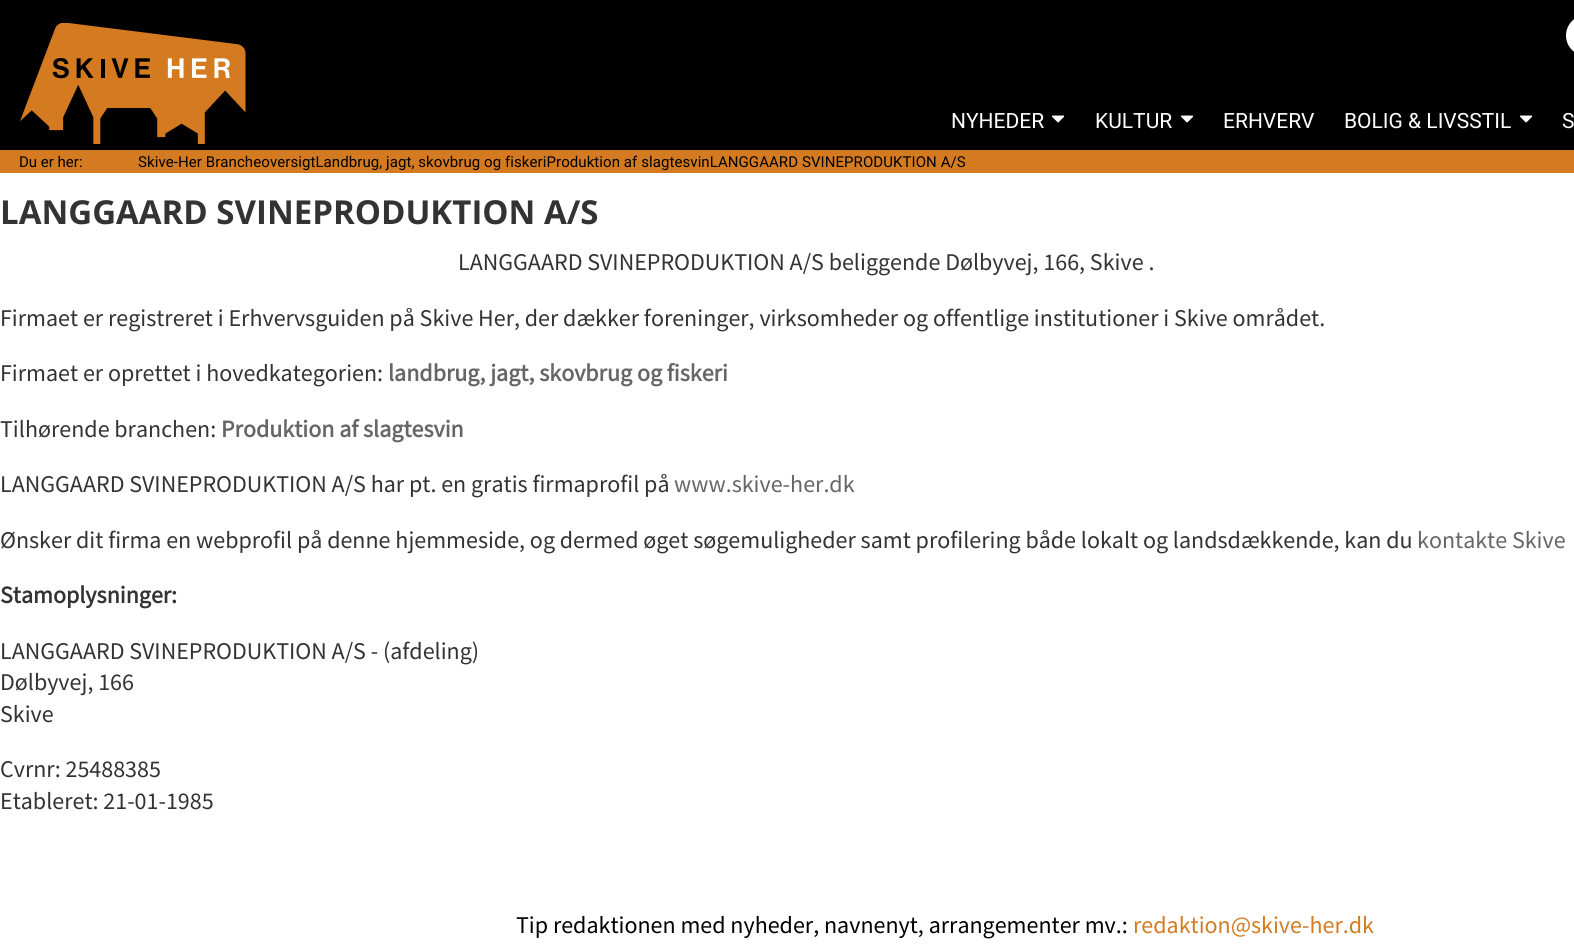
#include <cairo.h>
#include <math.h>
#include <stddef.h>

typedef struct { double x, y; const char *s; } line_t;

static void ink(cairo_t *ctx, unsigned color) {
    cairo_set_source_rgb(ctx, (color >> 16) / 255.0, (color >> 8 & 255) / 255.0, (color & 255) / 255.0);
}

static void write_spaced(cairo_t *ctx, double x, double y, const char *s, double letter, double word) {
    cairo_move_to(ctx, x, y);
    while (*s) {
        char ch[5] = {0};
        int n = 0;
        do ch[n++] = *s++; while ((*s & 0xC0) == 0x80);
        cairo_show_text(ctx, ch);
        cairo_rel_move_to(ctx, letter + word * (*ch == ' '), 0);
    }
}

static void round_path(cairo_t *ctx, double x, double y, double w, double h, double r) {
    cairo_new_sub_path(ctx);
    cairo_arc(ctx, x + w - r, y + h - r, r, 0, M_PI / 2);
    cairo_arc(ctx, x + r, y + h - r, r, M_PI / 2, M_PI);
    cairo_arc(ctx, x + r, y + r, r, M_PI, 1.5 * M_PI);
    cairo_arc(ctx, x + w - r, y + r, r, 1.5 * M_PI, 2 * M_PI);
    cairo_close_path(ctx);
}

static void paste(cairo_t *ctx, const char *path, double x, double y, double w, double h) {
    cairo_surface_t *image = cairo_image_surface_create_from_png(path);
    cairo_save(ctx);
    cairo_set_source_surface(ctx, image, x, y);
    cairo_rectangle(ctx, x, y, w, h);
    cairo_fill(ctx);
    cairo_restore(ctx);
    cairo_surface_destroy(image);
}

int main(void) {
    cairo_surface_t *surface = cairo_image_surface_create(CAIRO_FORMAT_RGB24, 1574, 950);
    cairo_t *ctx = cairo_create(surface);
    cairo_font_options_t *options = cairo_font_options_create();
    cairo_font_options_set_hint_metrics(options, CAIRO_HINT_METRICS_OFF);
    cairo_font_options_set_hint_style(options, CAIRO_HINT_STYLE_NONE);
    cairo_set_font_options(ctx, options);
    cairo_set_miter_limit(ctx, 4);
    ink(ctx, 0xFFFFFF);
    cairo_paint(ctx);
    ink(ctx, 0x000000);
    cairo_rectangle(ctx, 0, 0, 1574, 150);
    cairo_fill(ctx);
    paste(ctx, "media/1.png", 20, 23, 226, 121);
    cairo_select_font_face(ctx, "Roboto", CAIRO_FONT_SLANT_NORMAL, CAIRO_FONT_WEIGHT_NORMAL);
    cairo_set_font_size(ctx, 21);
    ink(ctx, 0xFFFFFF);
    cairo_move_to(ctx, 951, 128);
    cairo_show_text(ctx, "NYHEDER");
    paste(ctx, "media/2.png", 1052, 115, 13, 8);
    cairo_move_to(ctx, 1095, 128);
    cairo_show_text(ctx, "KULTUR");
    paste(ctx, "media/2.png", 1181, 115, 13, 8);
    cairo_move_to(ctx, 1223, 128);
    cairo_show_text(ctx, "ERHVERV");
    cairo_move_to(ctx, 1344, 128);
    cairo_show_text(ctx, "BOLIG & LIVSSTIL");
    paste(ctx, "media/2.png", 1520, 115, 13, 8);
    cairo_move_to(ctx, 1562, 128);
    cairo_show_text(ctx, "S");
    round_path(ctx, 1566, 15, 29, 41, 20.5);
    cairo_fill(ctx);
    ink(ctx, 0xD47B22);
    cairo_rectangle(ctx, 0, 150, 1574, 23);
    cairo_fill(ctx);
    cairo_set_font_size(ctx, 15);
    ink(ctx, 0x000000);
    cairo_move_to(ctx, 19, 167);
    cairo_show_text(ctx, "Du er her:");
    write_spaced(ctx, 138, 167, "Skive-Her BrancheoversigtLandbrug, jagt, skovbrug og fiskeriProduktion af slagtesvinLANGGAARD SVINEPRODUKTION A/S", 0.08, 0);
    cairo_select_font_face(ctx, "Open Sans", CAIRO_FONT_SLANT_NORMAL, CAIRO_FONT_WEIGHT_BOLD);
    cairo_set_font_size(ctx, 33);
    ink(ctx, 0x333333);
    cairo_move_to(ctx, 0, 224);
    cairo_show_text(ctx, "LANGGAARD SVINEPRODUKTION A/S");
    cairo_select_font_face(ctx, "Mada", CAIRO_FONT_SLANT_NORMAL, CAIRO_FONT_WEIGHT_NORMAL);
    cairo_set_font_size(ctx, 24);
    {
        static const line_t items[] = {
            {458, 270, "LANGGAARD SVINEPRODUKTION A/S beliggende Dølbyvej, 166, Skive ."},
            {0, 326, "Firmaet er registreret i Erhvervsguiden på Skive Her, der dækker foreninger, virksomheder og offentlige institutioner i Skive området."},
            {0, 381, "Firmaet er oprettet i hovedkategorien:"},
        };
        for (size_t i = 0; i < sizeof items / sizeof *items; i++) {
            cairo_move_to(ctx, items[i].x, items[i].y);
            cairo_show_text(ctx, items[i].s);
        }
    }
    cairo_select_font_face(ctx, "Mada", CAIRO_FONT_SLANT_NORMAL, CAIRO_FONT_WEIGHT_BOLD);
    ink(ctx, 0x666666);
    cairo_move_to(ctx, 388, 381);
    cairo_show_text(ctx, "landbrug, jagt, skovbrug og fiskeri");
    cairo_select_font_face(ctx, "Mada", CAIRO_FONT_SLANT_NORMAL, CAIRO_FONT_WEIGHT_NORMAL);
    ink(ctx, 0x333333);
    cairo_move_to(ctx, 0, 437);
    cairo_show_text(ctx, "Tilhørende branchen:");
    cairo_select_font_face(ctx, "Mada", CAIRO_FONT_SLANT_NORMAL, CAIRO_FONT_WEIGHT_BOLD);
    ink(ctx, 0x666666);
    cairo_move_to(ctx, 221, 437);
    cairo_show_text(ctx, "Produktion af slagtesvin");
    cairo_select_font_face(ctx, "Mada", CAIRO_FONT_SLANT_NORMAL, CAIRO_FONT_WEIGHT_NORMAL);
    ink(ctx, 0x333333);
    cairo_move_to(ctx, 0, 492);
    cairo_show_text(ctx, "LANGGAARD SVINEPRODUKTION A/S har pt. en gratis firmaprofil på");
    ink(ctx, 0x666666);
    cairo_move_to(ctx, 674, 492);
    cairo_show_text(ctx, "www.skive-her.dk");
    ink(ctx, 0x333333);
    cairo_move_to(ctx, 0, 548);
    cairo_show_text(ctx, "Ønsker dit firma en webprofil på denne hjemmeside, og dermed øget søgemuligheder samt profilering både lokalt og landsdækkende, kan du");
    ink(ctx, 0x666666);
    cairo_move_to(ctx, 1417, 548);
    cairo_show_text(ctx, "kontakte Skive");
    cairo_select_font_face(ctx, "Mada", CAIRO_FONT_SLANT_NORMAL, CAIRO_FONT_WEIGHT_BOLD);
    ink(ctx, 0x333333);
    cairo_move_to(ctx, 0, 603);
    cairo_show_text(ctx, "Stamoplysninger:");
    cairo_select_font_face(ctx, "Mada", CAIRO_FONT_SLANT_NORMAL, CAIRO_FONT_WEIGHT_NORMAL);
    {
        static const line_t items[] = {
            {0, 659, "LANGGAARD SVINEPRODUKTION A/S - (afdeling)"},
            {0, 690, "Dølbyvej, 166"},
            {0, 722, "Skive"},
            {0, 777, "Cvrnr: 25488385"},
            {0, 809, "Etableret: 21-01-1985"},
        };
        for (size_t i = 0; i < sizeof items / sizeof *items; i++) {
            cairo_move_to(ctx, items[i].x, items[i].y);
            cairo_show_text(ctx, items[i].s);
        }
    }
    ink(ctx, 0x000000);
    cairo_move_to(ctx, 516, 933);
    cairo_show_text(ctx, "Tip redaktionen med nyheder, navnenyt, arrangementer mv.:");
    ink(ctx, 0xD47B22);
    cairo_move_to(ctx, 1133, 933);
    cairo_show_text(ctx, "redaktion@skive-her.dk");
    cairo_surface_write_to_png(surface, "image.png");
    cairo_font_options_destroy(options);
    cairo_destroy(ctx);
    cairo_surface_destroy(surface);
    return 0;
}
